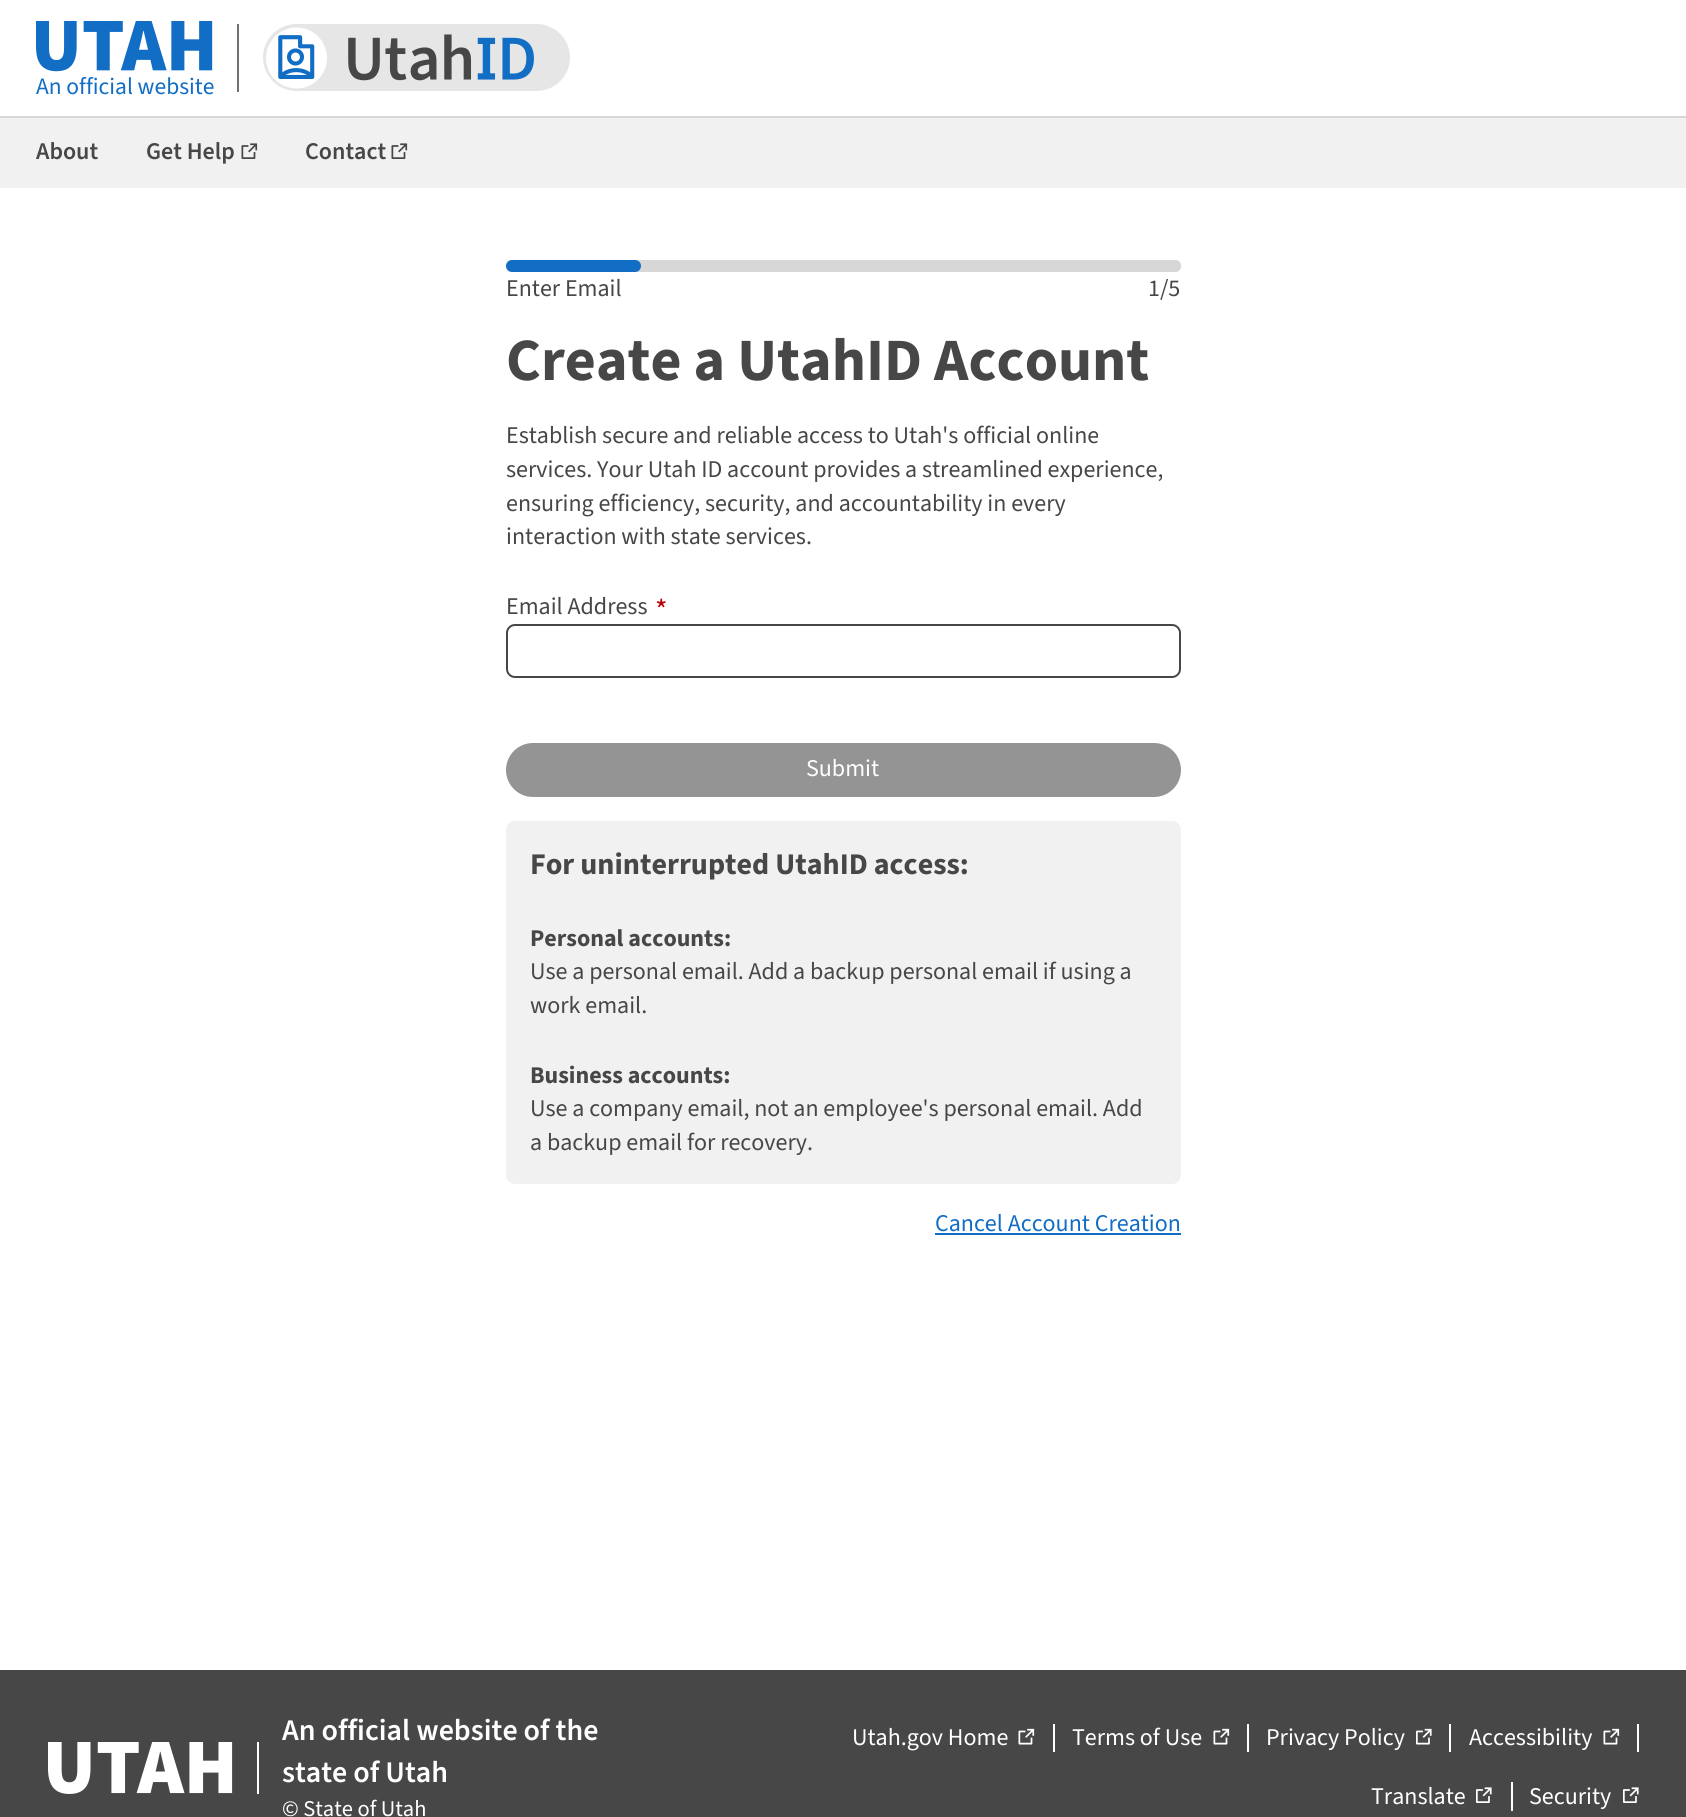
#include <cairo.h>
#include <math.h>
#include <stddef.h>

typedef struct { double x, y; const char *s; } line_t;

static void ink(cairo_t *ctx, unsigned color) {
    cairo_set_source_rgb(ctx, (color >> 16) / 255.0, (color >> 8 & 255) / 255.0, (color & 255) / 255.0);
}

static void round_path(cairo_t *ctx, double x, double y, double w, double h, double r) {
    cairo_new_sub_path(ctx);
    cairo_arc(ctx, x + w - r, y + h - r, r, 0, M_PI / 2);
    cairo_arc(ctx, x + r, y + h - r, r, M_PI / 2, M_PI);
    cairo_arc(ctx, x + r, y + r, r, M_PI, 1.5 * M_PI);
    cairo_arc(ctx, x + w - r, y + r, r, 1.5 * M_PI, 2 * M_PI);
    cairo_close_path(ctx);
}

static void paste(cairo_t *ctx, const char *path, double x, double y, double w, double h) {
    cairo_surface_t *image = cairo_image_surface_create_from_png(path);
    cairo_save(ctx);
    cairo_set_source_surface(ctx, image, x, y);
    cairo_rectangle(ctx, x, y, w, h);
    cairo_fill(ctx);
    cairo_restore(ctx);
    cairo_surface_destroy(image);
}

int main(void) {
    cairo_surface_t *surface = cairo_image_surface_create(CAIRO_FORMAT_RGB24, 1686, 1817);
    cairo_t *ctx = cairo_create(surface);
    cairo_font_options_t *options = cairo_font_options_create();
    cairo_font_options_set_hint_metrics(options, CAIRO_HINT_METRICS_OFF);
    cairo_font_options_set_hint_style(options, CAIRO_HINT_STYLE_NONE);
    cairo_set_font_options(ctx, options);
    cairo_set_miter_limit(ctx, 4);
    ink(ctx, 0xFFFFFF);
    cairo_paint(ctx);
    ink(ctx, 0xD7D7D7);
    cairo_rectangle(ctx, 0, 116, 1686, 2);
    cairo_fill(ctx);
    paste(ctx, "media/1.png", 36, 21, 177, 51);
    cairo_select_font_face(ctx, "Source Sans 3", CAIRO_FONT_SLANT_NORMAL, CAIRO_FONT_WEIGHT_NORMAL);
    cairo_set_font_size(ctx, 23.5);
    ink(ctx, 0x126DC4);
    cairo_move_to(ctx, 36, 94);
    cairo_show_text(ctx, "An official website");
    ink(ctx, 0x707070);
    cairo_rectangle(ctx, 237, 24, 2, 68);
    cairo_fill(ctx);
    paste(ctx, "media/2.png", 263, 24, 307, 67);
    ink(ctx, 0xF1F1F1);
    cairo_rectangle(ctx, 0, 118, 1686, 70);
    cairo_fill(ctx);
    cairo_select_font_face(ctx, "Source Sans 3 SemiBold", CAIRO_FONT_SLANT_NORMAL, CAIRO_FONT_WEIGHT_NORMAL);
    cairo_set_font_size(ctx, 24);
    ink(ctx, 0x474747);
    cairo_move_to(ctx, 36, 159);
    cairo_show_text(ctx, "About");
    cairo_move_to(ctx, 146, 159);
    cairo_show_text(ctx, "Get Help");
    paste(ctx, "media/3.png", 241, 143, 17, 16);
    cairo_move_to(ctx, 305, 159);
    cairo_show_text(ctx, "Contact");
    paste(ctx, "media/3.png", 391, 143, 17, 16);
    ink(ctx, 0xD7D7D7);
    round_path(ctx, 506, 260, 675, 12, 6);
    cairo_fill(ctx);
    ink(ctx, 0x126DC4);
    round_path(ctx, 506, 260, 135, 12, 6);
    cairo_fill(ctx);
    ink(ctx, 0xD7D7D7);
    cairo_new_path(ctx);
    cairo_move_to(ctx, 1046, 260);
    cairo_line_to(ctx, 1175, 260);
    cairo_curve_to(ctx, 1178.5, 260, 1181, 262.5, 1181, 266);
    cairo_curve_to(ctx, 1181, 269.5, 1178.5, 272, 1175, 272);
    cairo_line_to(ctx, 1046, 272);
    cairo_close_path(ctx);
    cairo_fill(ctx);
    cairo_select_font_face(ctx, "Source Sans 3", CAIRO_FONT_SLANT_NORMAL, CAIRO_FONT_WEIGHT_NORMAL);
    ink(ctx, 0x474747);
    cairo_move_to(ctx, 506, 296);
    cairo_show_text(ctx, "Enter Email");
    cairo_move_to(ctx, 1148, 296);
    cairo_show_text(ctx, "1/5");
    cairo_select_font_face(ctx, "Source Sans 3", CAIRO_FONT_SLANT_NORMAL, CAIRO_FONT_WEIGHT_BOLD);
    cairo_set_font_size(ctx, 60);
    cairo_move_to(ctx, 506, 380);
    cairo_show_text(ctx, "Create a UtahID Account");
    cairo_select_font_face(ctx, "Source Sans 3", CAIRO_FONT_SLANT_NORMAL, CAIRO_FONT_WEIGHT_NORMAL);
    cairo_set_font_size(ctx, 24);
    {
        static const line_t items[] = {
            {506, 443, "Establish secure and reliable access to Utah's official online"},
            {506, 477, "services. Your Utah ID account provides a streamlined experience,"},
            {506, 511, "ensuring efficiency, security, and accountability in every"},
            {506, 544, "interaction with state services."},
            {506, 614, "Email Address"},
        };
        for (size_t i = 0; i < sizeof items / sizeof *items; i++) {
            cairo_move_to(ctx, items[i].x, items[i].y);
            cairo_show_text(ctx, items[i].s);
        }
    }
    cairo_set_font_size(ctx, 30);
    ink(ctx, 0xBA0000);
    cairo_move_to(ctx, 655, 620);
    cairo_show_text(ctx, "*");
    round_path(ctx, 507, 625, 673, 52, 8);
    ink(ctx, 0x474747);
    cairo_stroke(ctx);
    ink(ctx, 0x949494);
    round_path(ctx, 507.5, 744.5, 672, 51, 25.5);
    cairo_fill_preserve(ctx);
    cairo_set_line_width(ctx, 3);
    cairo_stroke(ctx);
    cairo_set_font_size(ctx, 24);
    ink(ctx, 0xFFFFFF);
    cairo_move_to(ctx, 806, 776);
    cairo_show_text(ctx, "Submit");
    ink(ctx, 0xF1F1F1);
    round_path(ctx, 506, 821, 675, 363, 9);
    cairo_fill(ctx);
    cairo_select_font_face(ctx, "Source Sans 3", CAIRO_FONT_SLANT_NORMAL, CAIRO_FONT_WEIGHT_BOLD);
    cairo_set_font_size(ctx, 30);
    ink(ctx, 0x474747);
    cairo_move_to(ctx, 530, 874);
    cairo_show_text(ctx, "For uninterrupted UtahID access:");
    cairo_set_font_size(ctx, 24);
    cairo_move_to(ctx, 530, 946);
    cairo_show_text(ctx, "Personal accounts:");
    cairo_select_font_face(ctx, "Source Sans 3", CAIRO_FONT_SLANT_NORMAL, CAIRO_FONT_WEIGHT_NORMAL);
    cairo_move_to(ctx, 530, 979);
    cairo_show_text(ctx, "Use a personal email. Add a backup personal email if using a");
    cairo_move_to(ctx, 530, 1013);
    cairo_show_text(ctx, "work email.");
    cairo_select_font_face(ctx, "Source Sans 3", CAIRO_FONT_SLANT_NORMAL, CAIRO_FONT_WEIGHT_BOLD);
    cairo_move_to(ctx, 530, 1083);
    cairo_show_text(ctx, "Business accounts:");
    cairo_select_font_face(ctx, "Source Sans 3", CAIRO_FONT_SLANT_NORMAL, CAIRO_FONT_WEIGHT_NORMAL);
    cairo_move_to(ctx, 530, 1116);
    cairo_show_text(ctx, "Use a company email, not an employee's personal email. Add");
    cairo_move_to(ctx, 530, 1150);
    cairo_show_text(ctx, "a backup email for recovery.");
    ink(ctx, 0x126DC4);
    cairo_move_to(ctx, 935, 1231);
    cairo_show_text(ctx, "Cancel Account Creation");
    cairo_rectangle(ctx, 935, 1233, 246, 2);
    cairo_fill(ctx);
    ink(ctx, 0x474747);
    cairo_rectangle(ctx, 0, 1670, 1686, 147);
    cairo_fill(ctx);
    paste(ctx, "media/4.png", 48, 1742, 185, 52);
    ink(ctx, 0xFFFFFF);
    cairo_rectangle(ctx, 257, 1742, 2, 52);
    cairo_fill(ctx);
    cairo_select_font_face(ctx, "Source Sans 3 SemiBold", CAIRO_FONT_SLANT_NORMAL, CAIRO_FONT_WEIGHT_NORMAL);
    cairo_set_font_size(ctx, 30);
    cairo_move_to(ctx, 282, 1740);
    cairo_show_text(ctx, "An official website of the");
    cairo_move_to(ctx, 282, 1782);
    cairo_show_text(ctx, "state of Utah");
    cairo_select_font_face(ctx, "Source Sans 3", CAIRO_FONT_SLANT_NORMAL, CAIRO_FONT_WEIGHT_NORMAL);
    cairo_set_font_size(ctx, 22.5);
    cairo_move_to(ctx, 282, 1816);
    cairo_show_text(ctx, "© State of Utah");
    cairo_set_font_size(ctx, 24);
    cairo_move_to(ctx, 852, 1745);
    cairo_show_text(ctx, "Utah.gov Home");
    paste(ctx, "media/5.png", 1018, 1728, 17, 17);
    cairo_rectangle(ctx, 1053, 1724, 2, 28);
    cairo_fill(ctx);
    cairo_move_to(ctx, 1072, 1745);
    cairo_show_text(ctx, "Terms of Use");
    paste(ctx, "media/5.png", 1213, 1728, 17, 17);
    cairo_rectangle(ctx, 1247, 1724, 2, 28);
    cairo_fill(ctx);
    cairo_move_to(ctx, 1266, 1745);
    cairo_show_text(ctx, "Privacy Policy");
    paste(ctx, "media/6.png", 1416, 1728, 16, 17);
    cairo_rectangle(ctx, 1449, 1724, 2, 28);
    cairo_fill(ctx);
    cairo_move_to(ctx, 1469, 1745);
    cairo_show_text(ctx, "Accessibility");
    paste(ctx, "media/5.png", 1603, 1728, 17, 17);
    cairo_rectangle(ctx, 1637, 1724, 2, 28);
    cairo_fill(ctx);
    cairo_move_to(ctx, 1371, 1804);
    cairo_show_text(ctx, "Translate");
    paste(ctx, "media/7.png", 1476, 1787, 16, 16);
    cairo_rectangle(ctx, 1511, 1782, 2, 29);
    cairo_fill(ctx);
    cairo_move_to(ctx, 1529, 1804);
    cairo_show_text(ctx, "Security");
    paste(ctx, "media/7.png", 1623, 1787, 16, 16);
    cairo_surface_write_to_png(surface, "image.png");
    cairo_font_options_destroy(options);
    cairo_destroy(ctx);
    cairo_surface_destroy(surface);
    return 0;
}
